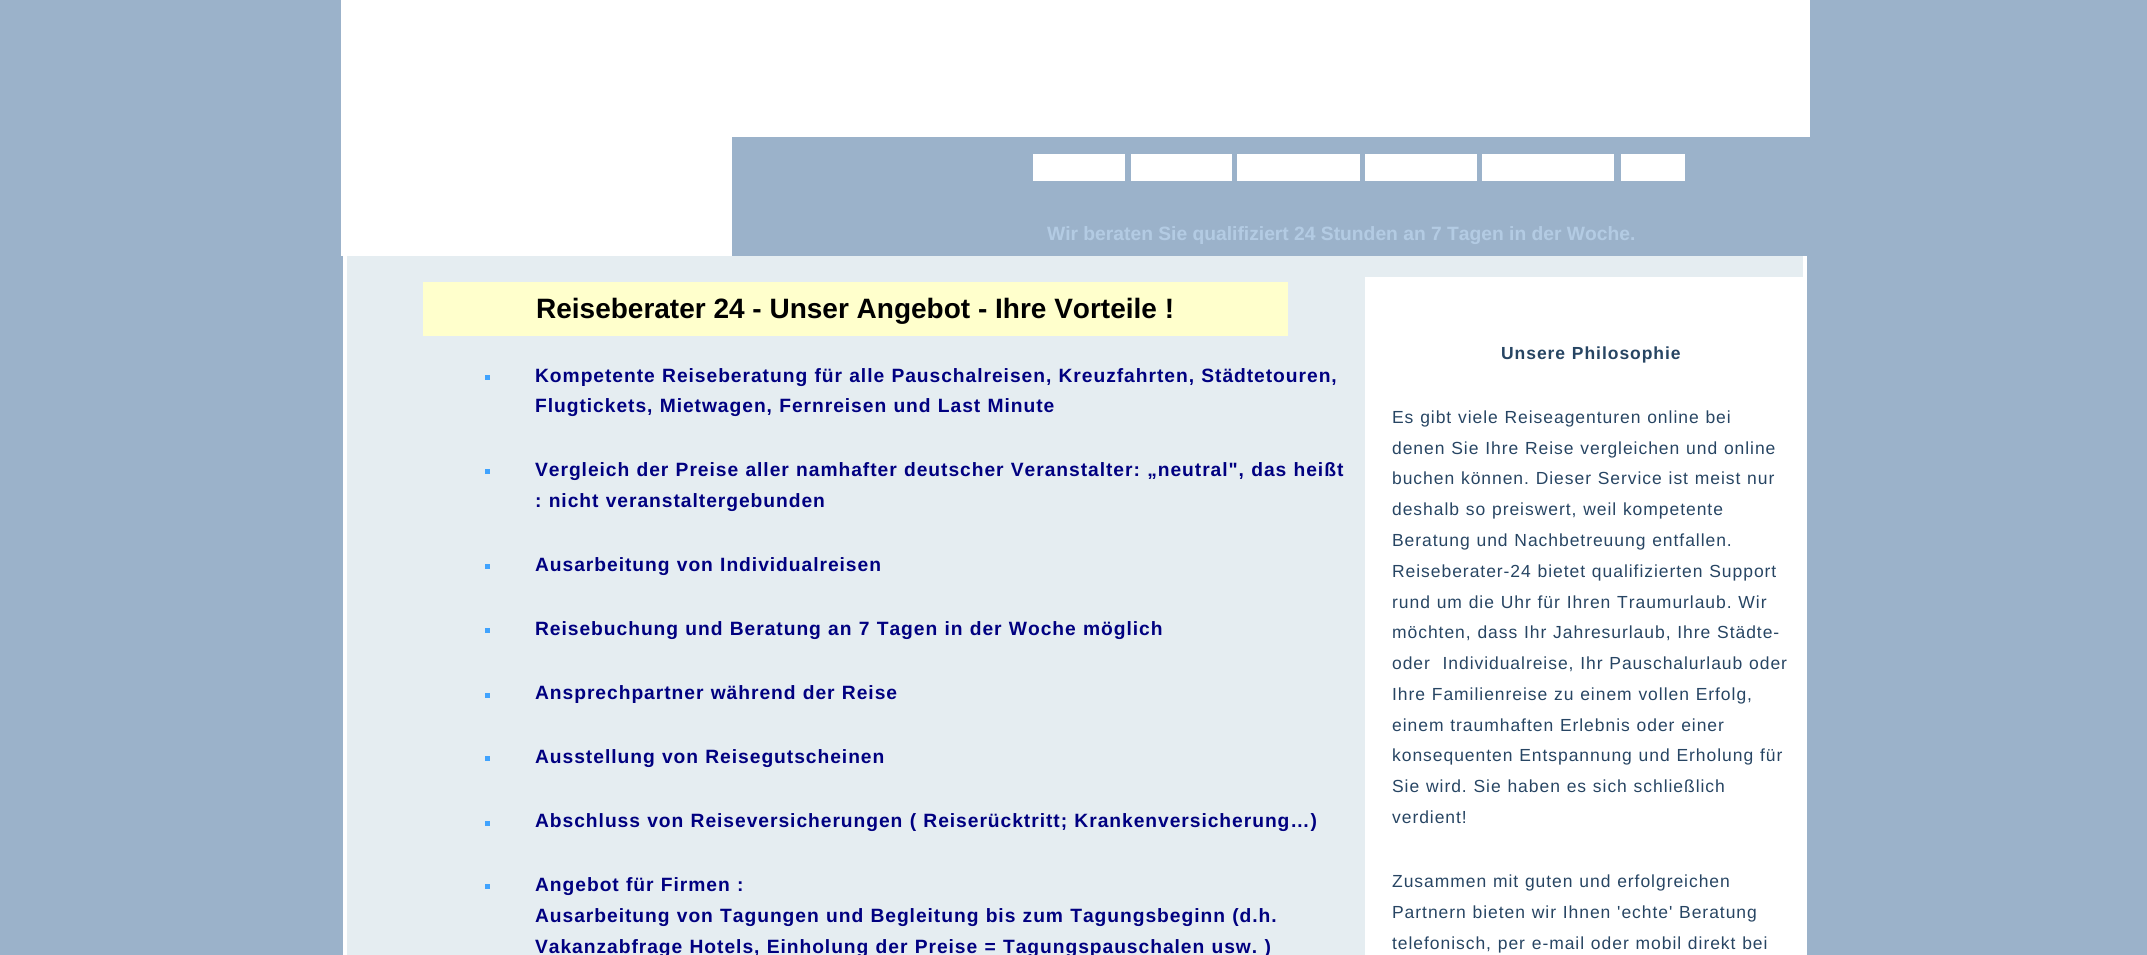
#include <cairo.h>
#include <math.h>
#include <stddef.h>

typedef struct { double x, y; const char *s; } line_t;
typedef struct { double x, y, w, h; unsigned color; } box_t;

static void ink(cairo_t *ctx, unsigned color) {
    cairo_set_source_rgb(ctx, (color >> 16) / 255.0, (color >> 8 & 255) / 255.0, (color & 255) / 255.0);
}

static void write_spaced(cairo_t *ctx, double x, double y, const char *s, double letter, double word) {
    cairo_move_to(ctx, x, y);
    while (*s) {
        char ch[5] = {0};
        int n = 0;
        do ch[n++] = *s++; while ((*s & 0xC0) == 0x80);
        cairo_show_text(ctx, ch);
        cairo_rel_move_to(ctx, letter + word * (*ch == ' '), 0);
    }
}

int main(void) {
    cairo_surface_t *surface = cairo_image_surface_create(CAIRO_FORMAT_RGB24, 2147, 955);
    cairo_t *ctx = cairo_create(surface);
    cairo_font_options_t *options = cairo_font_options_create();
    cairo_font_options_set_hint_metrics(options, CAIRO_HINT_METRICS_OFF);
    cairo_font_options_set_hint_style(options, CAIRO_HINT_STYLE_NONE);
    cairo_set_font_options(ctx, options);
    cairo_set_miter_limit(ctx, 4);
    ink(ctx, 0x9BB2CA);
    cairo_paint(ctx);
    {
        static const box_t items[] = {
            {341, 0, 391, 256, 0xFFFFFF},
            {732, 0, 1078, 137, 0xFFFFFF},
            {1033, 154, 92, 27, 0xFFFFFF},
            {1131, 154, 101, 27, 0xFFFFFF},
            {1237, 154, 123, 27, 0xFFFFFF},
            {1365, 154, 112, 27, 0xFFFFFF},
            {1482, 154, 132, 27, 0xFFFFFF},
            {1621, 154, 64, 27, 0xFFFFFF},
        };
        for (size_t i = 0; i < sizeof items / sizeof *items; i++) {
            ink(ctx, items[i].color);
            cairo_rectangle(ctx, items[i].x, items[i].y, items[i].w, items[i].h);
            cairo_fill(ctx);
        }
    }
    cairo_select_font_face(ctx, "Liberation Sans", CAIRO_FONT_SLANT_NORMAL, CAIRO_FONT_WEIGHT_BOLD);
    cairo_set_font_size(ctx, 19.25);
    ink(ctx, 0xB3CBE3);
    cairo_move_to(ctx, 1047, 240);
    cairo_show_text(ctx, "Wir beraten Sie qualifiziert 24 Stunden an 7 Tagen in der Woche.");
    {
        static const box_t items[] = {
            {347, 256, 1456, 699, 0xE5EDF1},
            {1803, 256, 4, 699, 0xFFFFFF},
            {343, 256, 4, 699, 0xFFFFFF},
            {423, 282, 865, 54, 0xFFFFCC},
        };
        for (size_t i = 0; i < sizeof items / sizeof *items; i++) {
            ink(ctx, items[i].color);
            cairo_rectangle(ctx, items[i].x, items[i].y, items[i].w, items[i].h);
            cairo_fill(ctx);
        }
    }
    cairo_set_font_size(ctx, 28);
    ink(ctx, 0x000000);
    cairo_move_to(ctx, 536, 318);
    cairo_show_text(ctx, "Reiseberater 24 - Unser Angebot - Ihre Vorteile !");
    ink(ctx, 0x40A3FE);
    cairo_rectangle(ctx, 485, 375, 5, 5);
    cairo_fill(ctx);
    cairo_set_font_size(ctx, 19.25);
    ink(ctx, 0x000080);
    write_spaced(ctx, 535, 382, "Kompetente Reiseberatung für alle Pauschalreisen, Kreuzfahrten, Städtetouren,", 0.95, 0);
    write_spaced(ctx, 535, 412, "Flugtickets, Mietwagen, Fernreisen und Last Minute", 0.95, 0);
    ink(ctx, 0x40A3FE);
    cairo_rectangle(ctx, 485, 469, 5, 5);
    cairo_fill(ctx);
    ink(ctx, 0x000080);
    write_spaced(ctx, 535, 476, "Vergleich der Preise aller namhafter deutscher Veranstalter: „neutral\", das heißt", 0.95, 0);
    write_spaced(ctx, 535, 507, ": nicht veranstaltergebunden", 0.95, 0);
    ink(ctx, 0x40A3FE);
    cairo_rectangle(ctx, 485, 564, 5, 5);
    cairo_fill(ctx);
    ink(ctx, 0x000080);
    write_spaced(ctx, 535, 571, "Ausarbeitung von Individualreisen", 0.95, 0);
    ink(ctx, 0x40A3FE);
    cairo_rectangle(ctx, 485, 628, 5, 5);
    cairo_fill(ctx);
    ink(ctx, 0x000080);
    write_spaced(ctx, 535, 635, "Reisebuchung und Beratung an 7 Tagen in der Woche möglich", 0.95, 0);
    ink(ctx, 0x40A3FE);
    cairo_rectangle(ctx, 485, 693, 5, 5);
    cairo_fill(ctx);
    ink(ctx, 0x000080);
    write_spaced(ctx, 535, 699, "Ansprechpartner während der Reise", 0.95, 0);
    ink(ctx, 0x40A3FE);
    cairo_rectangle(ctx, 485, 756, 5, 5);
    cairo_fill(ctx);
    ink(ctx, 0x000080);
    write_spaced(ctx, 535, 763, "Ausstellung von Reisegutscheinen", 0.95, 0);
    ink(ctx, 0x40A3FE);
    cairo_rectangle(ctx, 485, 821, 5, 5);
    cairo_fill(ctx);
    ink(ctx, 0x000080);
    write_spaced(ctx, 535, 827, "Abschluss von Reiseversicherungen ( Reiserücktritt; Krankenversicherung…)", 0.95, 0);
    ink(ctx, 0x40A3FE);
    cairo_rectangle(ctx, 485, 884, 5, 5);
    cairo_fill(ctx);
    ink(ctx, 0x000080);
    {
        static const line_t items[] = {
            {535, 891, "Angebot für Firmen :"},
            {535, 922, "Ausarbeitung von Tagungen und Begleitung bis zum Tagungsbeginn (d.h."},
            {535, 953, "Vakanzabfrage Hotels, Einholung der Preise = Tagungspauschalen usw. )"},
        };
        for (size_t i = 0; i < sizeof items / sizeof *items; i++) {
            write_spaced(ctx, items[i].x, items[i].y, items[i].s, 0.95, 0);
        }
    }
    ink(ctx, 0xFFFFFF);
    cairo_rectangle(ctx, 1365, 277, 438, 678);
    cairo_fill(ctx);
    cairo_set_font_size(ctx, 17.5);
    ink(ctx, 0x274563);
    write_spaced(ctx, 1501, 359, "Unsere Philosophie", 0.95, 0);
    cairo_select_font_face(ctx, "Liberation Sans", CAIRO_FONT_SLANT_NORMAL, CAIRO_FONT_WEIGHT_NORMAL);
    {
        static const line_t items[] = {
            {1392, 423, "Es gibt viele Reiseagenturen online bei"},
            {1392, 454, "denen Sie Ihre Reise vergleichen und online"},
            {1392, 484, "buchen können. Dieser Service ist meist nur"},
            {1392, 515, "deshalb so preiswert, weil kompetente"},
            {1392, 546, "Beratung und Nachbetreuung entfallen."},
            {1392, 577, "Reiseberater-24 bietet qualifizierten Support"},
            {1392, 608, "rund um die Uhr für Ihren Traumurlaub. Wir"},
            {1392, 638, "möchten, dass Ihr Jahresurlaub, Ihre Städte-"},
            {1392, 669, "oder  Individualreise, Ihr Pauschalurlaub oder"},
            {1392, 700, "Ihre Familienreise zu einem vollen Erfolg,"},
            {1392, 731, "einem traumhaften Erlebnis oder einer"},
            {1392, 761, "konsequenten Entspannung und Erholung für"},
            {1392, 792, "Sie wird. Sie haben es sich schließlich"},
            {1392, 823, "verdient!"},
            {1392, 887, "Zusammen mit guten und erfolgreichen"},
            {1392, 918, "Partnern bieten wir Ihnen 'echte' Beratung"},
            {1392, 949, "telefonisch, per e-mail oder mobil direkt bei"},
        };
        for (size_t i = 0; i < sizeof items / sizeof *items; i++) {
            write_spaced(ctx, items[i].x, items[i].y, items[i].s, 0.95, 0);
        }
    }
    cairo_surface_write_to_png(surface, "image.png");
    cairo_font_options_destroy(options);
    cairo_destroy(ctx);
    cairo_surface_destroy(surface);
    return 0;
}
